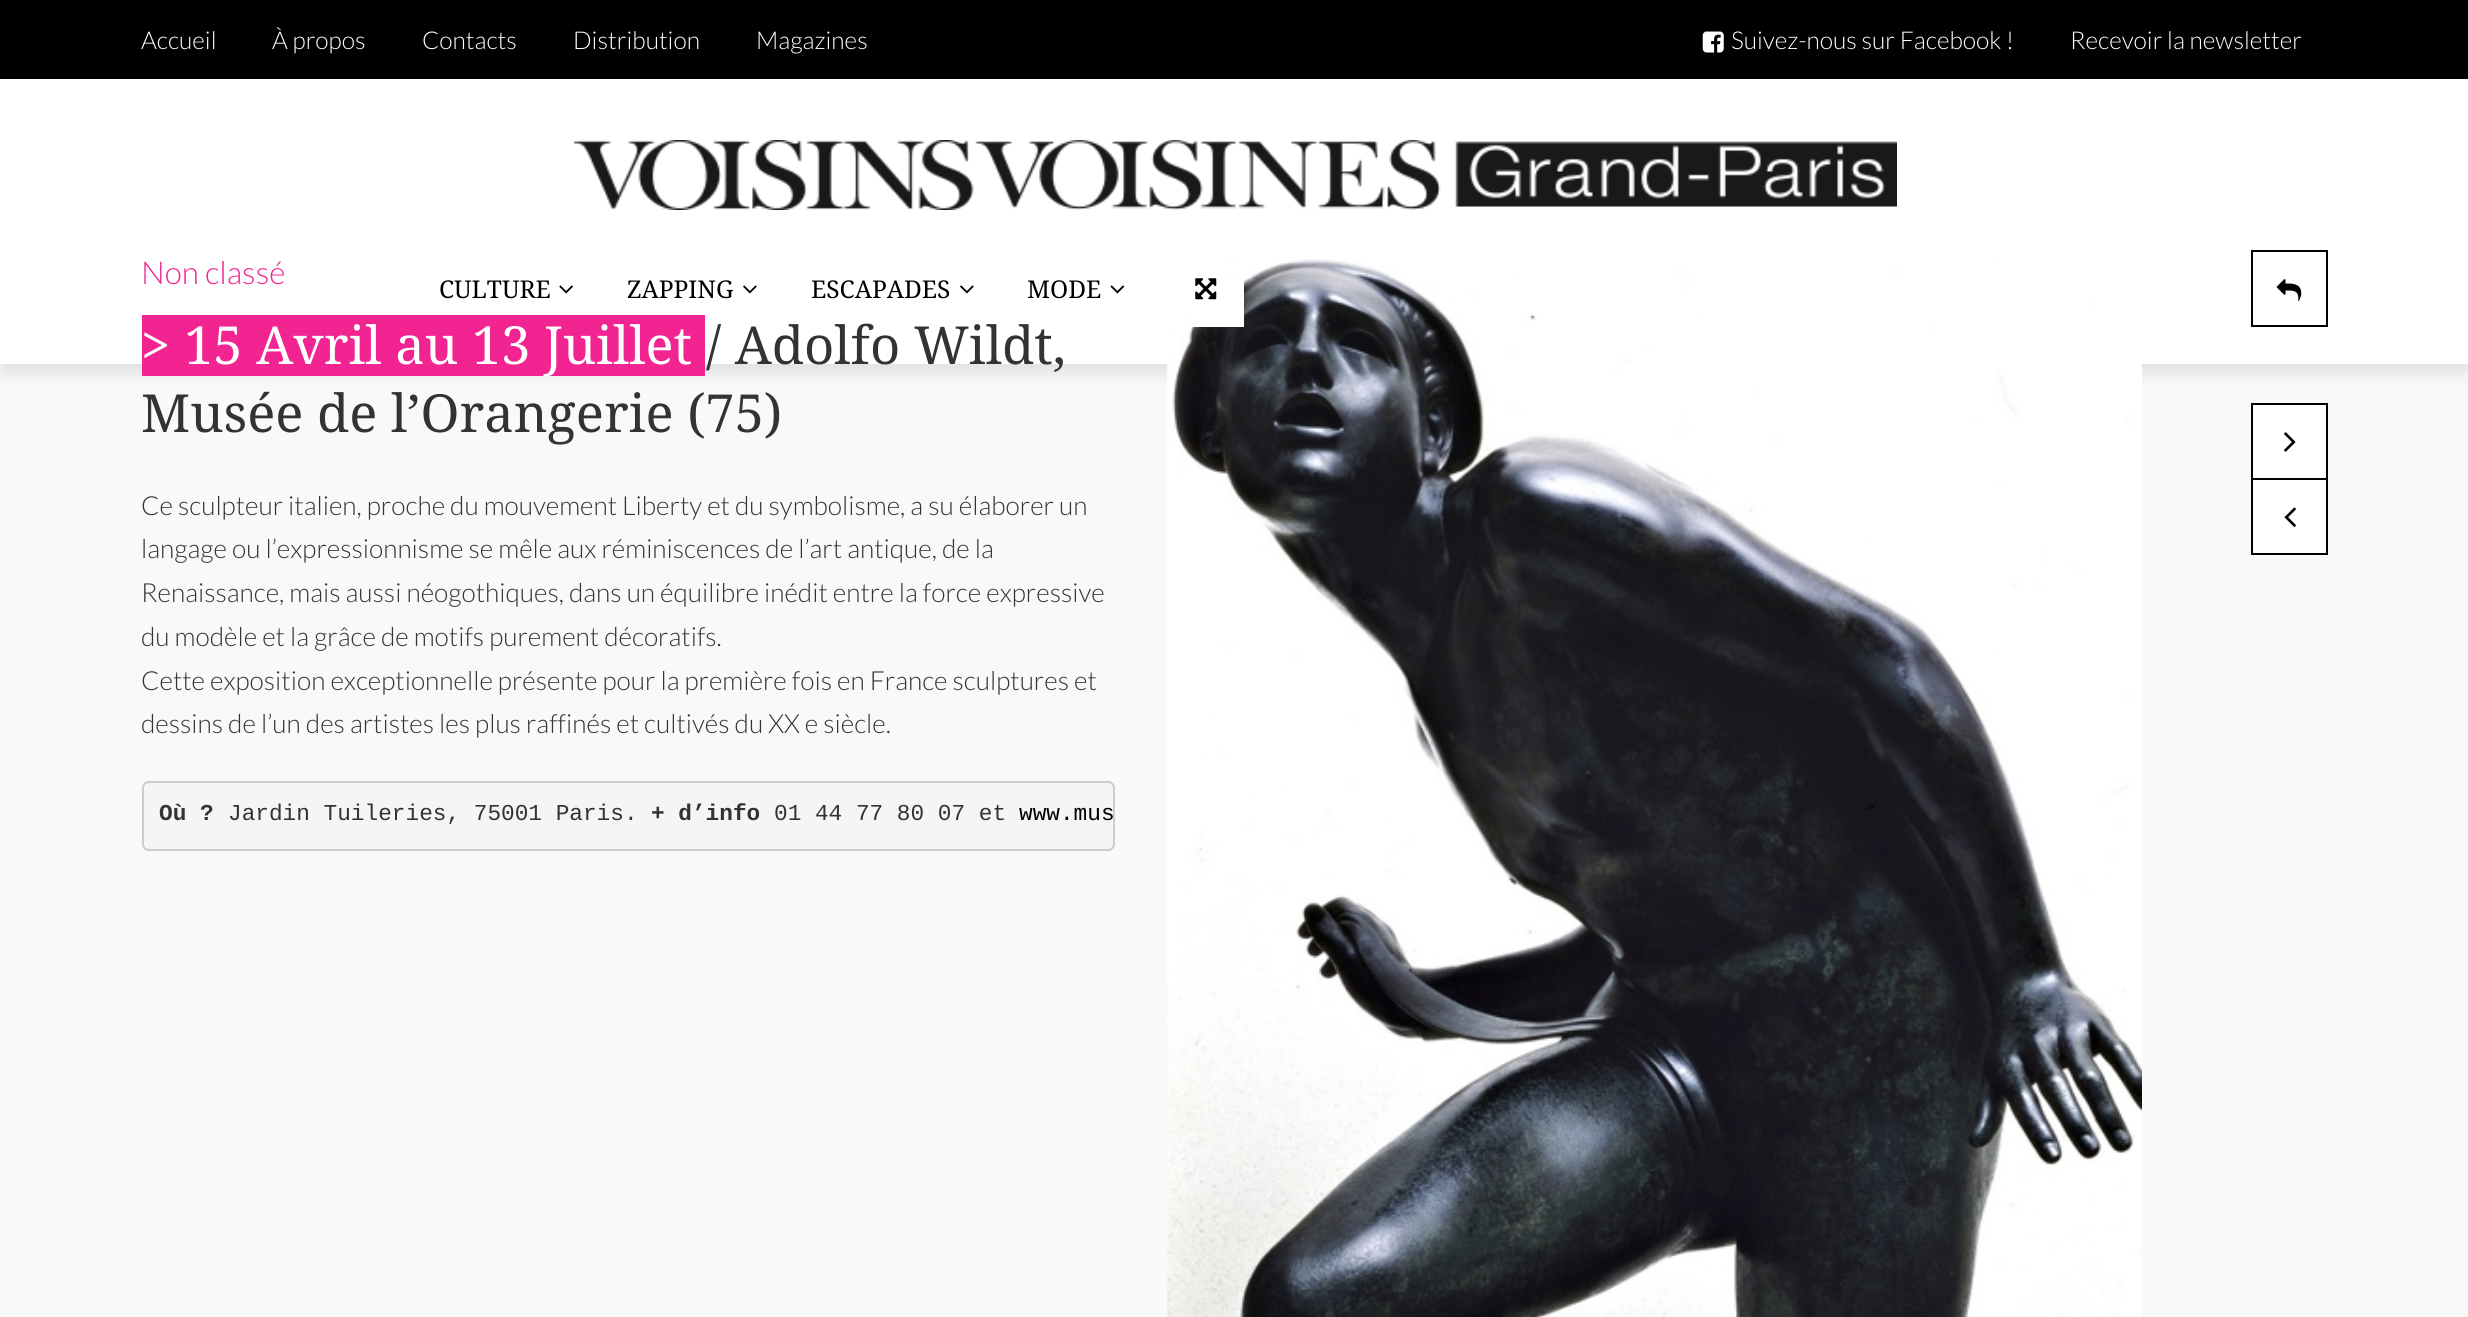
#include <cairo.h>
#include <math.h>
#include <stddef.h>

typedef struct { double x, y; const char *s; } line_t;

static void ink(cairo_t *ctx, unsigned color) {
    cairo_set_source_rgb(ctx, (color >> 16) / 255.0, (color >> 8 & 255) / 255.0, (color & 255) / 255.0);
}

static void round_path(cairo_t *ctx, double x, double y, double w, double h, double r) {
    cairo_new_sub_path(ctx);
    cairo_arc(ctx, x + w - r, y + h - r, r, 0, M_PI / 2);
    cairo_arc(ctx, x + r, y + h - r, r, M_PI / 2, M_PI);
    cairo_arc(ctx, x + r, y + r, r, M_PI, 1.5 * M_PI);
    cairo_arc(ctx, x + w - r, y + r, r, 1.5 * M_PI, 2 * M_PI);
    cairo_close_path(ctx);
}

static void blur_box(cairo_t *ctx, double x, double y, double w, double h, double r, double blur, double alpha) {
    cairo_push_group_with_content(ctx, CAIRO_CONTENT_ALPHA);
    cairo_set_operator(ctx, CAIRO_OPERATOR_SOURCE);
    for (int i = 15; i >= -15 && fmin(w, h) + blur * i / 3 > 0; i -= 2) {
        double e = blur * i / 6;
        cairo_set_source_rgba(ctx, 0, 0, 0, alpha * erfc((i - 1) / 8.5) / 2);
        round_path(ctx, x - e, y - e, w + 2 * e, h + 2 * e, fmax(0, fmin(r + e + blur * .6, fmin(w, h) / 2 + e)));
        cairo_fill(ctx);
    }
    cairo_pattern_t *soft = cairo_pop_group(ctx);
    cairo_mask(ctx, soft);
    cairo_pattern_destroy(soft);
}

static void paste(cairo_t *ctx, const char *path, double x, double y, double w, double h) {
    cairo_surface_t *image = cairo_image_surface_create_from_png(path);
    cairo_save(ctx);
    cairo_set_source_surface(ctx, image, x, y);
    cairo_rectangle(ctx, x, y, w, h);
    cairo_fill(ctx);
    cairo_restore(ctx);
    cairo_surface_destroy(image);
}

int main(void) {
    cairo_surface_t *surface = cairo_image_surface_create(CAIRO_FORMAT_RGB24, 2468, 1317);
    cairo_t *ctx = cairo_create(surface);
    cairo_font_options_t *options = cairo_font_options_create();
    cairo_font_options_set_hint_metrics(options, CAIRO_HINT_METRICS_OFF);
    cairo_font_options_set_hint_style(options, CAIRO_HINT_STYLE_NONE);
    cairo_set_font_options(ctx, options);
    cairo_set_miter_limit(ctx, 4);
    ink(ctx, 0xF9F9F9);
    cairo_paint(ctx);
    ink(ctx, 0x000000);
    cairo_rectangle(ctx, 0, 0, 2468, 79);
    cairo_fill(ctx);
    cairo_select_font_face(ctx, "Lato Light", CAIRO_FONT_SLANT_NORMAL, CAIRO_FONT_WEIGHT_NORMAL);
    cairo_set_font_size(ctx, 24.5);
    ink(ctx, 0xFFFFFF);
    {
        static const line_t items[] = {
            {141, 49, "Accueil"},
            {272, 49, "À propos"},
            {422, 49, "Contacts"},
            {573, 49, "Distribution"},
            {756, 49, "Magazines"},
            {1731, 49, "Suivez-nous sur Facebook !"},
            {2070, 49, "Recevoir la newsletter"},
        };
        for (size_t i = 0; i < sizeof items / sizeof *items; i++) {
            cairo_move_to(ctx, items[i].x, items[i].y);
            cairo_show_text(ctx, items[i].s);
        }
    }
    paste(ctx, "media/1.png", 1702, 31, 22, 22);
    ink(ctx, 0x000000);
    blur_box(ctx, 0, 88, 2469, 285, 0, 9, 0.1);
    ink(ctx, 0xFFFFFF);
    cairo_rectangle(ctx, 0, 79, 2468, 285);
    cairo_fill(ctx);
    paste(ctx, "media/2.png", 574, 140, 1323, 70);
    cairo_select_font_face(ctx, "Droid Serif", CAIRO_FONT_SLANT_NORMAL, CAIRO_FONT_WEIGHT_NORMAL);
    ink(ctx, 0x000000);
    cairo_move_to(ctx, 439, 298);
    cairo_show_text(ctx, "CULTURE");
    paste(ctx, "media/3.png", 559, 285, 14, 9);
    cairo_move_to(ctx, 627, 298);
    cairo_show_text(ctx, "ZAPPING");
    paste(ctx, "media/4.png", 743, 285, 14, 9);
    cairo_move_to(ctx, 811, 298);
    cairo_show_text(ctx, "ESCAPADES");
    paste(ctx, "media/4.png", 960, 285, 14, 9);
    cairo_move_to(ctx, 1027, 298);
    cairo_show_text(ctx, "MODE");
    paste(ctx, "media/5.png", 1110, 285, 15, 9);
    cairo_select_font_face(ctx, "Lato Light", CAIRO_FONT_SLANT_NORMAL, CAIRO_FONT_WEIGHT_NORMAL);
    cairo_set_font_size(ctx, 31.5);
    ink(ctx, 0xF22492);
    cairo_move_to(ctx, 141, 284);
    cairo_show_text(ctx, "Non classé");
    cairo_rectangle(ctx, 142, 315, 563, 61);
    cairo_fill(ctx);
    cairo_select_font_face(ctx, "Droid Serif", CAIRO_FONT_SLANT_NORMAL, CAIRO_FONT_WEIGHT_NORMAL);
    cairo_set_font_size(ctx, 52.5);
    ink(ctx, 0xFFFFFF);
    cairo_move_to(ctx, 141, 364);
    cairo_show_text(ctx, "> 15 Avril au 13 Juillet");
    ink(ctx, 0x333333);
    cairo_move_to(ctx, 706, 364);
    cairo_show_text(ctx, "/ Adolfo Wildt,");
    cairo_move_to(ctx, 141, 432);
    cairo_show_text(ctx, "Musée de l’Orangerie (75)");
    cairo_select_font_face(ctx, "Lato Light", CAIRO_FONT_SLANT_NORMAL, CAIRO_FONT_WEIGHT_NORMAL);
    cairo_set_font_size(ctx, 26.25);
    {
        static const line_t items[] = {
            {141, 515, "Ce sculpteur italien, proche du mouvement Liberty et du symbolisme, a su élaborer un"},
            {141, 558, "langage ou l’expressionnisme se mêle aux réminiscences de l’art antique, de la"},
            {141, 602, "Renaissance, mais aussi néogothiques, dans un équilibre inédit entre la force expressive"},
            {141, 646, "du modèle et la grâce de motifs purement décoratifs."},
            {141, 690, "Cette exposition exceptionnelle présente pour la première fois en France sculptures et"},
            {141, 733, "dessins de l’un des artistes les plus raffinés et cultivés du XX e siècle."},
        };
        for (size_t i = 0; i < sizeof items / sizeof *items; i++) {
            cairo_move_to(ctx, items[i].x, items[i].y);
            cairo_show_text(ctx, items[i].s);
        }
    }
    ink(ctx, 0xF5F5F5);
    round_path(ctx, 143, 782, 971, 68, 6);
    cairo_fill_preserve(ctx);
    ink(ctx, 0xCCCCCC);
    cairo_stroke(ctx);
    cairo_select_font_face(ctx, "Liberation Mono", CAIRO_FONT_SLANT_NORMAL, CAIRO_FONT_WEIGHT_BOLD);
    cairo_set_font_size(ctx, 22.75);
    ink(ctx, 0x333333);
    cairo_move_to(ctx, 159, 820);
    cairo_show_text(ctx, "Où ?");
    cairo_select_font_face(ctx, "Liberation Mono", CAIRO_FONT_SLANT_NORMAL, CAIRO_FONT_WEIGHT_NORMAL);
    cairo_move_to(ctx, 228, 820);
    cairo_show_text(ctx, "Jardin Tuileries, 75001 Paris.");
    cairo_select_font_face(ctx, "Liberation Mono", CAIRO_FONT_SLANT_NORMAL, CAIRO_FONT_WEIGHT_BOLD);
    cairo_move_to(ctx, 651, 820);
    cairo_show_text(ctx, "+ d’info");
    cairo_select_font_face(ctx, "Liberation Mono", CAIRO_FONT_SLANT_NORMAL, CAIRO_FONT_WEIGHT_NORMAL);
    cairo_move_to(ctx, 774, 820);
    cairo_show_text(ctx, "01 44 77 80 07 et");
    ink(ctx, 0x000000);
    cairo_move_to(ctx, 1019, 820);
    cairo_show_text(ctx, "www.mus");
    paste(ctx, "media/6.png", 1167, 259, 975, 1058);
    ink(ctx, 0xFFFFFF);
    cairo_rectangle(ctx, 1191, 280, 53, 47);
    cairo_fill(ctx);
    paste(ctx, "media/7.png", 1195, 278, 22, 22);
    cairo_rectangle(ctx, 2252, 251, 75, 75);
    ink(ctx, 0x000000);
    cairo_stroke(ctx);
    paste(ctx, "media/8.png", 2276, 279, 26, 22);
    ink(ctx, 0xFFFFFF);
    cairo_rectangle(ctx, 2252, 404, 75, 75);
    cairo_fill_preserve(ctx);
    ink(ctx, 0x000000);
    cairo_stroke(ctx);
    paste(ctx, "media/9.png", 2284, 432, 12, 20);
    ink(ctx, 0xFFFFFF);
    cairo_rectangle(ctx, 2252, 479, 75, 75);
    cairo_fill_preserve(ctx);
    ink(ctx, 0x000000);
    cairo_stroke(ctx);
    paste(ctx, "media/10.png", 2284, 507, 12, 20);
    cairo_surface_write_to_png(surface, "image.png");
    cairo_font_options_destroy(options);
    cairo_destroy(ctx);
    cairo_surface_destroy(surface);
    return 0;
}
